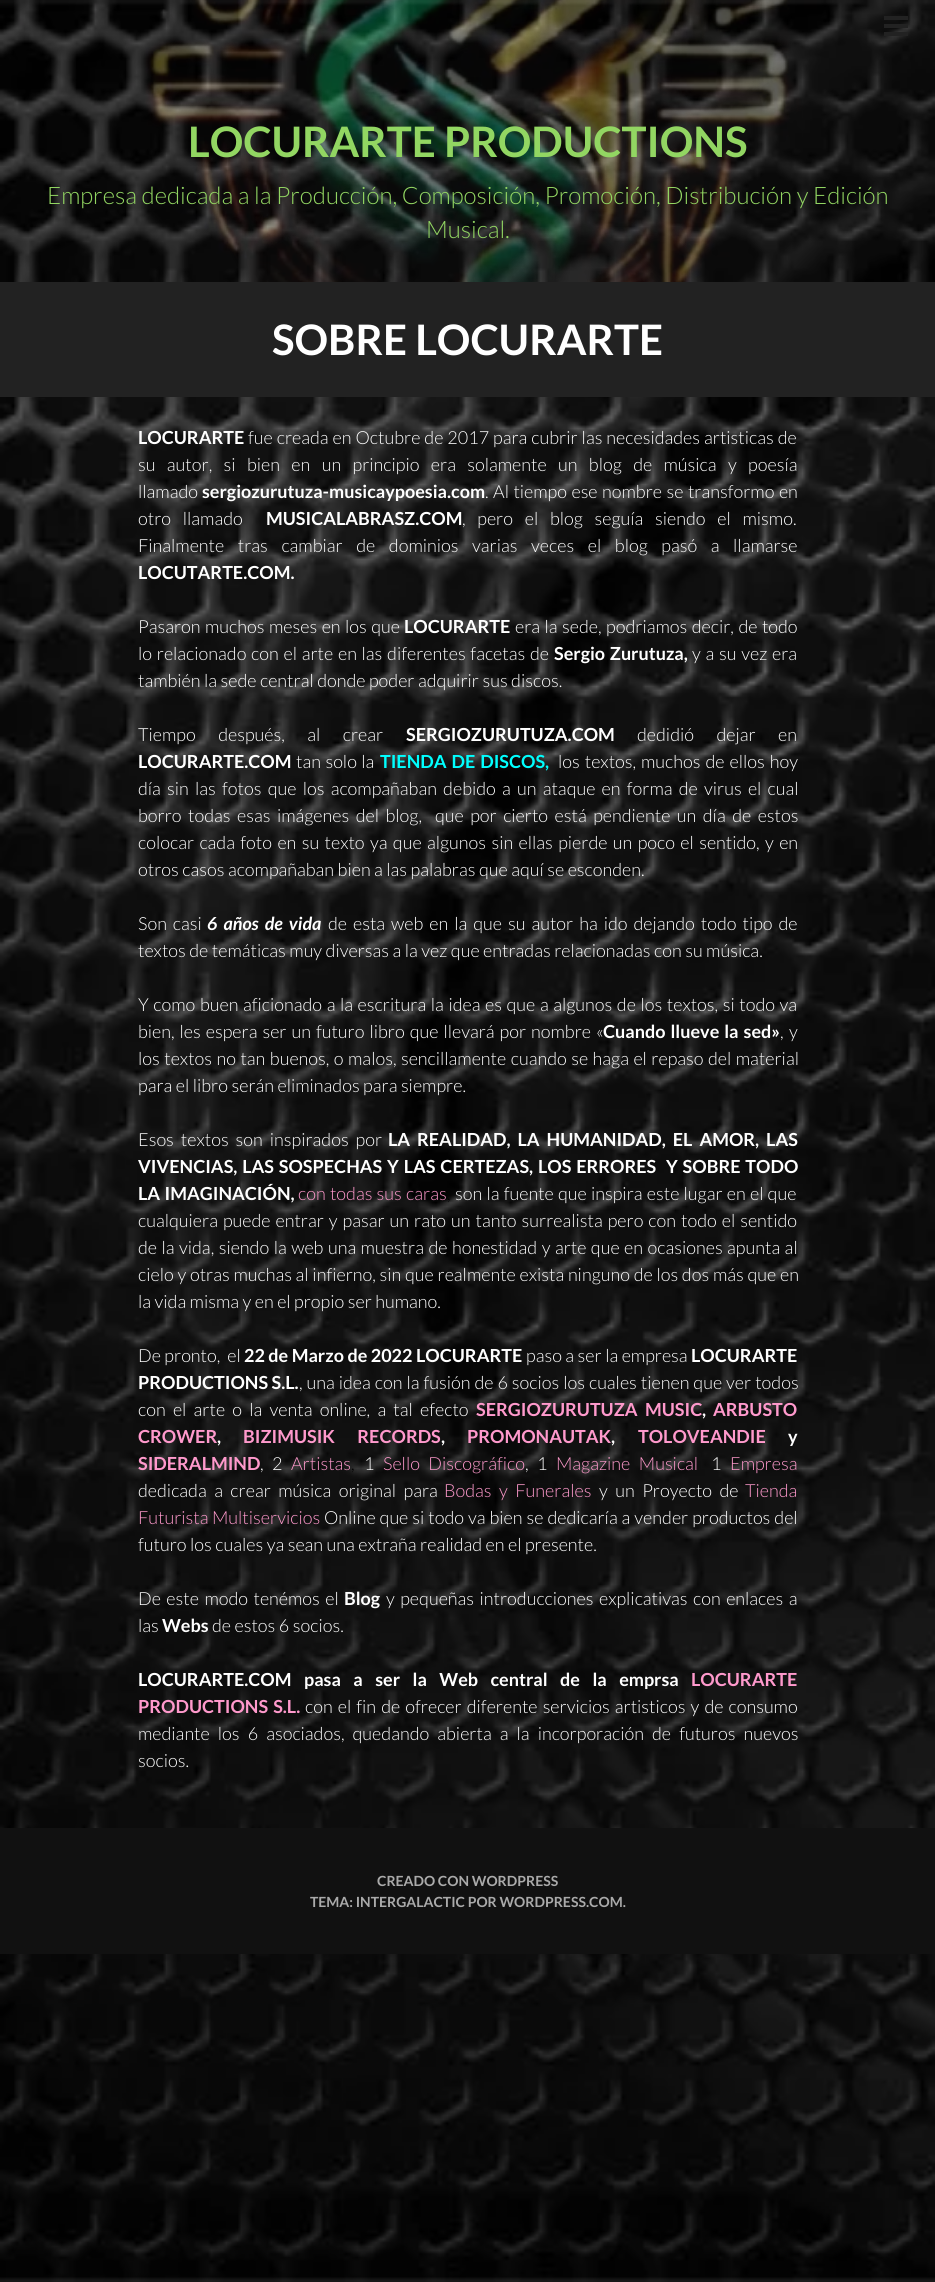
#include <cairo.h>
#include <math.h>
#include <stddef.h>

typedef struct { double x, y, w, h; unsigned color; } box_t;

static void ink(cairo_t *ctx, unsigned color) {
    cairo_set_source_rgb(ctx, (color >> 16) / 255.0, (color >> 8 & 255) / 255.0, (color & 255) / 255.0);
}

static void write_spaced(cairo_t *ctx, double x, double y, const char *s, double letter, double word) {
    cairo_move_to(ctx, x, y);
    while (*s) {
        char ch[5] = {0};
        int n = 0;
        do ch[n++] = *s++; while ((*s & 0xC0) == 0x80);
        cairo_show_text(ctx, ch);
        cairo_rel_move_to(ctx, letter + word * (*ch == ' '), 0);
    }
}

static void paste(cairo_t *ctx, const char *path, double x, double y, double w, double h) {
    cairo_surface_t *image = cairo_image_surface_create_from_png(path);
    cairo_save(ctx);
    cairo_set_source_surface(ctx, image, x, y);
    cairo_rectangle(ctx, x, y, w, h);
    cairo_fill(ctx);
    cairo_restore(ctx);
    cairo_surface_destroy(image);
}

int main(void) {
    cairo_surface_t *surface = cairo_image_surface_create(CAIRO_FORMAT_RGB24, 935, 2282);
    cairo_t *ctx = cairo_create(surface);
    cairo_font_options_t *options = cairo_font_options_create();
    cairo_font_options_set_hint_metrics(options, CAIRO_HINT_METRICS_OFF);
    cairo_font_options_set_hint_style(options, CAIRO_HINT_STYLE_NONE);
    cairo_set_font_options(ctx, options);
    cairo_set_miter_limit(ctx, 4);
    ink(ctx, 0xFFFFFF);
    cairo_paint(ctx);
    paste(ctx, "media/1.png", 0, 0, 935, 2282);
    paste(ctx, "media/2.png", 0, 0, 935, 282);
    {
        static const box_t items[] = {
            {884, 24, 24, 4, 0x222222},
            {884, 16, 24, 4, 0x222222},
            {884, 32, 24, 4, 0x222222},
        };
        for (size_t i = 0; i < sizeof items / sizeof *items; i++) {
            ink(ctx, items[i].color);
            cairo_rectangle(ctx, items[i].x, items[i].y, items[i].w, items[i].h);
            cairo_fill(ctx);
        }
    }
    cairo_select_font_face(ctx, "Lato", CAIRO_FONT_SLANT_NORMAL, CAIRO_FONT_WEIGHT_BOLD);
    cairo_set_font_size(ctx, 42);
    ink(ctx, 0x92D662);
    cairo_move_to(ctx, 188, 157);
    cairo_show_text(ctx, "LOCURARTE PRODUCTIONS");
    cairo_select_font_face(ctx, "Lato Light", CAIRO_FONT_SLANT_NORMAL, CAIRO_FONT_WEIGHT_NORMAL);
    cairo_set_font_size(ctx, 24);
    cairo_move_to(ctx, 47, 204);
    cairo_show_text(ctx, "Empresa dedicada a la Producción, Composición, Promoción, Distribución y Edición");
    cairo_move_to(ctx, 426, 238);
    cairo_show_text(ctx, "Musical.");
    ink(ctx, 0x222222);
    cairo_rectangle(ctx, 0, 282, 935, 115);
    cairo_fill(ctx);
    cairo_select_font_face(ctx, "Lato", CAIRO_FONT_SLANT_NORMAL, CAIRO_FONT_WEIGHT_BOLD);
    cairo_set_font_size(ctx, 42);
    ink(ctx, 0xFFFFFF);
    cairo_move_to(ctx, 272, 355);
    cairo_show_text(ctx, "SOBRE LOCURARTE");
    cairo_set_font_size(ctx, 18);
    cairo_move_to(ctx, 138, 444);
    cairo_show_text(ctx, "LOCURARTE");
    cairo_select_font_face(ctx, "Lato Light", CAIRO_FONT_SLANT_NORMAL, CAIRO_FONT_WEIGHT_NORMAL);
    write_spaced(ctx, 248, 444, "fue creada en Octubre de 2017 para cubrir las necesidades artisticas de", 0, 0.5);
    write_spaced(ctx, 138, 471, "su autor, si bien en un principio era solamente un blog de música y poesía", 0, 7.9);
    cairo_move_to(ctx, 138, 498);
    cairo_show_text(ctx, "llamado");
    cairo_select_font_face(ctx, "Lato", CAIRO_FONT_SLANT_NORMAL, CAIRO_FONT_WEIGHT_BOLD);
    cairo_move_to(ctx, 202, 498);
    cairo_show_text(ctx, "sergiozurutuza-musicaypoesia.com");
    cairo_select_font_face(ctx, "Lato Light", CAIRO_FONT_SLANT_NORMAL, CAIRO_FONT_WEIGHT_NORMAL);
    write_spaced(ctx, 485, 498, ". Al tiempo ese nombre se transformo en", 0, 1);
    write_spaced(ctx, 138, 525, "otro llamado", 0, 8.25);
    cairo_select_font_face(ctx, "Lato", CAIRO_FONT_SLANT_NORMAL, CAIRO_FONT_WEIGHT_BOLD);
    cairo_move_to(ctx, 266, 525);
    cairo_show_text(ctx, "MUSICALABRASZ.COM");
    cairo_select_font_face(ctx, "Lato Light", CAIRO_FONT_SLANT_NORMAL, CAIRO_FONT_WEIGHT_NORMAL);
    write_spaced(ctx, 462, 525, ", pero el blog seguía siendo el mismo.", 0, 8.25);
    write_spaced(ctx, 138, 552, "Finalmente tras cambiar de dominios varias veces el blog pasó a llamarse", 0, 10.1);
    cairo_select_font_face(ctx, "Lato", CAIRO_FONT_SLANT_NORMAL, CAIRO_FONT_WEIGHT_BOLD);
    cairo_move_to(ctx, 138, 579);
    cairo_show_text(ctx, "LOCUTARTE.COM.");
    cairo_select_font_face(ctx, "Lato Light", CAIRO_FONT_SLANT_NORMAL, CAIRO_FONT_WEIGHT_NORMAL);
    write_spaced(ctx, 138, 633, "Pasaron muchos meses en los que", 0, 1);
    cairo_select_font_face(ctx, "Lato", CAIRO_FONT_SLANT_NORMAL, CAIRO_FONT_WEIGHT_BOLD);
    cairo_move_to(ctx, 404, 633);
    cairo_show_text(ctx, "LOCURARTE");
    cairo_select_font_face(ctx, "Lato Light", CAIRO_FONT_SLANT_NORMAL, CAIRO_FONT_WEIGHT_NORMAL);
    write_spaced(ctx, 515, 633, "era la sede, podriamos decir, de todo", 0, 1);
    write_spaced(ctx, 138, 660, "lo relacionado con el arte en las diferentes facetas de", 0, 1.25);
    cairo_select_font_face(ctx, "Lato", CAIRO_FONT_SLANT_NORMAL, CAIRO_FONT_WEIGHT_BOLD);
    write_spaced(ctx, 554, 660, "Sergio Zurutuza,", 0, 1.25);
    cairo_select_font_face(ctx, "Lato Light", CAIRO_FONT_SLANT_NORMAL, CAIRO_FONT_WEIGHT_NORMAL);
    write_spaced(ctx, 692, 660, "y a su vez era", 0, 1.25);
    cairo_move_to(ctx, 138, 687);
    cairo_show_text(ctx, "también la sede central donde poder adquirir sus discos.");
    write_spaced(ctx, 138, 741, "Tiempo después, al crear", 0, 19);
    cairo_select_font_face(ctx, "Lato", CAIRO_FONT_SLANT_NORMAL, CAIRO_FONT_WEIGHT_BOLD);
    cairo_move_to(ctx, 406, 741);
    cairo_show_text(ctx, "SERGIOZURUTUZA.COM");
    cairo_select_font_face(ctx, "Lato Light", CAIRO_FONT_SLANT_NORMAL, CAIRO_FONT_WEIGHT_NORMAL);
    write_spaced(ctx, 637, 741, "dedidió dejar en", 0, 19);
    cairo_select_font_face(ctx, "Lato", CAIRO_FONT_SLANT_NORMAL, CAIRO_FONT_WEIGHT_BOLD);
    cairo_move_to(ctx, 138, 768);
    cairo_show_text(ctx, "LOCURARTE.COM");
    cairo_select_font_face(ctx, "Lato Light", CAIRO_FONT_SLANT_NORMAL, CAIRO_FONT_WEIGHT_NORMAL);
    write_spaced(ctx, 296, 768, "tan solo la", 0, 1);
    cairo_select_font_face(ctx, "Lato", CAIRO_FONT_SLANT_NORMAL, CAIRO_FONT_WEIGHT_BOLD);
    ink(ctx, 0x00FFFF);
    write_spaced(ctx, 380, 768, "TIENDA DE DISCOS,", 0, 1.5);
    cairo_select_font_face(ctx, "Lato Light", CAIRO_FONT_SLANT_NORMAL, CAIRO_FONT_WEIGHT_NORMAL);
    ink(ctx, 0xFFFFFF);
    write_spaced(ctx, 558, 768, "los textos, muchos de ellos hoy", 0, 1.5);
    write_spaced(ctx, 138, 795, "día sin las fotos que los acompañaban debido a un ataque en forma de virus el cual", 0, 2.75);
    write_spaced(ctx, 138, 822, "borro todas esas imágenes del blog,  que por cierto está pendiente un día de estos", 0, 3);
    write_spaced(ctx, 138, 849, "colocar cada foto en su texto ya que algunos sin ellas pierde un poco el sentido, y en", 0, 1.9);
    cairo_move_to(ctx, 138, 876);
    cairo_show_text(ctx, "otros casos acompañaban bien a las palabras que aquí se esconden.");
    write_spaced(ctx, 138, 930, "Son casi", 0, 2.5);
    cairo_select_font_face(ctx, "Lato", CAIRO_FONT_SLANT_ITALIC, CAIRO_FONT_WEIGHT_BOLD);
    write_spaced(ctx, 207, 930, "6 años de vida", 0, 2.5);
    cairo_select_font_face(ctx, "Lato Light", CAIRO_FONT_SLANT_NORMAL, CAIRO_FONT_WEIGHT_NORMAL);
    write_spaced(ctx, 328, 930, "de esta web en la que su autor ha ido dejando todo tipo de", 0, 2.5);
    cairo_move_to(ctx, 138, 957);
    cairo_show_text(ctx, "textos de temáticas muy diversas a la vez que entradas relacionadas con su música.");
    write_spaced(ctx, 138, 1011, "Y como buen aficionado a la escritura la idea es que a algunos de los textos, si todo va", 0, 1.1);
    write_spaced(ctx, 138, 1038, "bien, les espera ser un futuro libro que llevará por nombre «", 0, 1.5);
    cairo_select_font_face(ctx, "Lato", CAIRO_FONT_SLANT_NORMAL, CAIRO_FONT_WEIGHT_BOLD);
    write_spaced(ctx, 603, 1038, "Cuando llueve la sed»", 0, 1.5);
    cairo_select_font_face(ctx, "Lato Light", CAIRO_FONT_SLANT_NORMAL, CAIRO_FONT_WEIGHT_NORMAL);
    write_spaced(ctx, 780, 1038, ", y", 0, 2);
    write_spaced(ctx, 138, 1065, "los textos no tan buenos, o malos, sencillamente cuando se haga el repaso del material", 0, 1);
    cairo_move_to(ctx, 138, 1092);
    cairo_show_text(ctx, "para el libro serán eliminados para siempre.");
    write_spaced(ctx, 138, 1146, "Esos textos son inspirados por", 0, 3.5);
    cairo_select_font_face(ctx, "Lato", CAIRO_FONT_SLANT_NORMAL, CAIRO_FONT_WEIGHT_BOLD);
    cairo_move_to(ctx, 388, 1146);
    cairo_show_text(ctx, "LA");
    write_spaced(ctx, 417, 1146, "REALIDAD, LA HUMANIDAD, EL AMOR, LAS", 0, 3.5);
    write_spaced(ctx, 138, 1173, "VIVENCIAS, LAS SOSPECHAS Y LAS CERTEZAS, LOS ERRORES  Y SOBRE TODO", 0, 1.4);
    write_spaced(ctx, 138, 1200, "LA IMAGINACIÓN,", 0, 1);
    cairo_select_font_face(ctx, "Lato Light", CAIRO_FONT_SLANT_NORMAL, CAIRO_FONT_WEIGHT_NORMAL);
    ink(ctx, 0xFF99CC);
    write_spaced(ctx, 298, 1200, "con todas sus caras", 0, 0.75);
    ink(ctx, 0x000000);
    cairo_move_to(ctx, 447, 1200);
    cairo_show_text(ctx, ",");
    ink(ctx, 0xFFFFFF);
    write_spaced(ctx, 455, 1200, "son la fuente que inspira este lugar en el que", 0, 0.75);
    write_spaced(ctx, 138, 1227, "cualquiera puede entrar y pasar un rato un tanto surrealista pero con todo el sentido", 0, 1.5);
    write_spaced(ctx, 138, 1254, "de la vida, siendo la web una muestra de honestidad y arte que en ocasiones apunta al", 0, 1);
    write_spaced(ctx, 138, 1281, "cielo y otras muchas al infierno, sin que realmente exista ninguno de los dos más que en", 0, 0.25);
    cairo_move_to(ctx, 138, 1308);
    cairo_show_text(ctx, "la vida misma y en el propio ser humano.");
    cairo_move_to(ctx, 138, 1362);
    cairo_show_text(ctx, "De pronto,  el");
    cairo_select_font_face(ctx, "Lato", CAIRO_FONT_SLANT_NORMAL, CAIRO_FONT_WEIGHT_BOLD);
    cairo_move_to(ctx, 244, 1362);
    cairo_show_text(ctx, "22 de Marzo de 2022 LOCURARTE");
    cairo_select_font_face(ctx, "Lato Light", CAIRO_FONT_SLANT_NORMAL, CAIRO_FONT_WEIGHT_NORMAL);
    cairo_move_to(ctx, 526, 1362);
    cairo_show_text(ctx, "paso a ser la empresa");
    cairo_select_font_face(ctx, "Lato", CAIRO_FONT_SLANT_NORMAL, CAIRO_FONT_WEIGHT_BOLD);
    cairo_move_to(ctx, 691, 1362);
    cairo_show_text(ctx, "LOCURARTE");
    cairo_move_to(ctx, 138, 1389);
    cairo_show_text(ctx, "PRODUCTIONS S.L.");
    cairo_select_font_face(ctx, "Lato Light", CAIRO_FONT_SLANT_NORMAL, CAIRO_FONT_WEIGHT_NORMAL);
    write_spaced(ctx, 299, 1389, ", una idea con la fusión de 6 socios los cuales tienen que ver todos", 0, 0.5);
    write_spaced(ctx, 138, 1416, "con el arte o la venta online, a tal efecto", 0, 3.75);
    cairo_select_font_face(ctx, "Lato", CAIRO_FONT_SLANT_NORMAL, CAIRO_FONT_WEIGHT_BOLD);
    ink(ctx, 0xFF99CC);
    cairo_move_to(ctx, 476, 1416);
    cairo_show_text(ctx, "SERGIOZURUTUZA");
    cairo_move_to(ctx, 645, 1416);
    cairo_show_text(ctx, "MUSIC");
    ink(ctx, 0xFFFFFF);
    cairo_move_to(ctx, 702, 1416);
    cairo_show_text(ctx, ",");
    ink(ctx, 0xFF99CC);
    cairo_move_to(ctx, 713, 1416);
    cairo_show_text(ctx, "ARBUSTO");
    cairo_move_to(ctx, 138, 1443);
    cairo_show_text(ctx, "CROWER");
    ink(ctx, 0xFFFFFF);
    cairo_move_to(ctx, 217, 1443);
    cairo_show_text(ctx, ",");
    ink(ctx, 0xFF99CC);
    write_spaced(ctx, 243, 1443, "BIZIMUSIK RECORDS", 0, 19);
    ink(ctx, 0xFFFFFF);
    cairo_move_to(ctx, 441, 1443);
    cairo_show_text(ctx, ",");
    ink(ctx, 0xFF99CC);
    cairo_move_to(ctx, 467, 1443);
    cairo_show_text(ctx, "PROMONAUTAK");
    ink(ctx, 0xFFFFFF);
    cairo_move_to(ctx, 611, 1443);
    cairo_show_text(ctx, ",");
    ink(ctx, 0xFF99CC);
    cairo_move_to(ctx, 638, 1443);
    cairo_show_text(ctx, "TOLOVEANDIE");
    ink(ctx, 0xFFFFFF);
    cairo_move_to(ctx, 788, 1443);
    cairo_show_text(ctx, "y");
    ink(ctx, 0xFF99CC);
    cairo_move_to(ctx, 138, 1470);
    cairo_show_text(ctx, "SIDERALMIND");
    cairo_select_font_face(ctx, "Lato Light", CAIRO_FONT_SLANT_NORMAL, CAIRO_FONT_WEIGHT_NORMAL);
    ink(ctx, 0xFFFFFF);
    write_spaced(ctx, 260, 1470, ", 2", 0, 5);
    ink(ctx, 0xFF99CC);
    cairo_move_to(ctx, 291, 1470);
    cairo_show_text(ctx, "Artistas");
    ink(ctx, 0x000000);
    cairo_move_to(ctx, 351, 1470);
    cairo_show_text(ctx, ",");
    ink(ctx, 0xFFFFFF);
    cairo_move_to(ctx, 364, 1470);
    cairo_show_text(ctx, "1");
    ink(ctx, 0xFF99CC);
    write_spaced(ctx, 383, 1470, "Sello Discográfico", 0, 5);
    ink(ctx, 0xFFFFFF);
    cairo_move_to(ctx, 525, 1470);
    cairo_show_text(ctx, ",");
    cairo_move_to(ctx, 537, 1470);
    cairo_show_text(ctx, "1");
    ink(ctx, 0xFF99CC);
    write_spaced(ctx, 556, 1470, "Magazine Musical", 0, 5);
    ink(ctx, 0xFFFFFF);
    cairo_move_to(ctx, 711, 1470);
    cairo_show_text(ctx, "1");
    ink(ctx, 0xFF99CC);
    cairo_move_to(ctx, 730, 1470);
    cairo_show_text(ctx, "Empresa");
    ink(ctx, 0xFFFFFF);
    write_spaced(ctx, 138, 1497, "dedicada a crear música original para", 0, 4);
    ink(ctx, 0xFF99CC);
    write_spaced(ctx, 444, 1497, "Bodas y Funerales", 0, 4);
    ink(ctx, 0xFFFFFF);
    write_spaced(ctx, 599, 1497, "y un Proyecto de", 0, 4);
    ink(ctx, 0xFF99CC);
    cairo_move_to(ctx, 745, 1497);
    cairo_show_text(ctx, "Tienda");
    cairo_move_to(ctx, 138, 1524);
    cairo_show_text(ctx, "Futurista Multiservicios");
    ink(ctx, 0xFFFFFF);
    write_spaced(ctx, 324, 1524, "Online que si todo va bien se dedicaría a vender productos del", 0, 0.5);
    cairo_move_to(ctx, 138, 1551);
    cairo_show_text(ctx, "futuro los cuales ya sean una extraña realidad en el presente.");
    write_spaced(ctx, 138, 1605, "De este modo tenémos el", 0, 2);
    cairo_select_font_face(ctx, "Lato", CAIRO_FONT_SLANT_NORMAL, CAIRO_FONT_WEIGHT_BOLD);
    cairo_move_to(ctx, 344, 1605);
    cairo_show_text(ctx, "Blog");
    cairo_select_font_face(ctx, "Lato Light", CAIRO_FONT_SLANT_NORMAL, CAIRO_FONT_WEIGHT_NORMAL);
    write_spaced(ctx, 386, 1605, "y pequeñas introducciones explicativas con enlaces a", 0, 2);
    cairo_move_to(ctx, 138, 1632);
    cairo_show_text(ctx, "las");
    cairo_select_font_face(ctx, "Lato", CAIRO_FONT_SLANT_NORMAL, CAIRO_FONT_WEIGHT_BOLD);
    cairo_move_to(ctx, 162, 1632);
    cairo_show_text(ctx, "Webs");
    cairo_select_font_face(ctx, "Lato Light", CAIRO_FONT_SLANT_NORMAL, CAIRO_FONT_WEIGHT_NORMAL);
    cairo_move_to(ctx, 212, 1632);
    cairo_show_text(ctx, "de estos 6 socios.");
    cairo_select_font_face(ctx, "Lato", CAIRO_FONT_SLANT_NORMAL, CAIRO_FONT_WEIGHT_BOLD);
    write_spaced(ctx, 138, 1686, "LOCURARTE.COM pasa a ser la Web central de la emprsa", 0, 9);
    ink(ctx, 0xFF99CC);
    cairo_move_to(ctx, 691, 1686);
    cairo_show_text(ctx, "LOCURARTE");
    write_spaced(ctx, 138, 1713, "PRODUCTIONS S.L.", 0, 1.6);
    cairo_select_font_face(ctx, "Lato Light", CAIRO_FONT_SLANT_NORMAL, CAIRO_FONT_WEIGHT_NORMAL);
    ink(ctx, 0xFFFFFF);
    write_spaced(ctx, 305, 1713, "con el fin de ofrecer diferente servicios artisticos y de consumo", 0, 1.6);
    write_spaced(ctx, 138, 1740, "mediante los 6 asociados, quedando abierta a la incorporación de futuros nuevos", 0, 4.6);
    cairo_move_to(ctx, 138, 1767);
    cairo_show_text(ctx, "socios.");
    ink(ctx, 0x111111);
    cairo_rectangle(ctx, 0, 1828, 935, 126);
    cairo_fill(ctx);
    cairo_select_font_face(ctx, "Lato", CAIRO_FONT_SLANT_NORMAL, CAIRO_FONT_WEIGHT_BOLD);
    cairo_set_font_size(ctx, 14);
    ink(ctx, 0xAAAAAA);
    cairo_move_to(ctx, 377, 1886);
    cairo_show_text(ctx, "CREADO CON WORDPRESS");
    cairo_move_to(ctx, 310, 1907);
    cairo_show_text(ctx, "TEMA: INTERGALACTIC POR WORDPRESS.COM.");
    cairo_surface_write_to_png(surface, "image.png");
    cairo_font_options_destroy(options);
    cairo_destroy(ctx);
    cairo_surface_destroy(surface);
    return 0;
}
